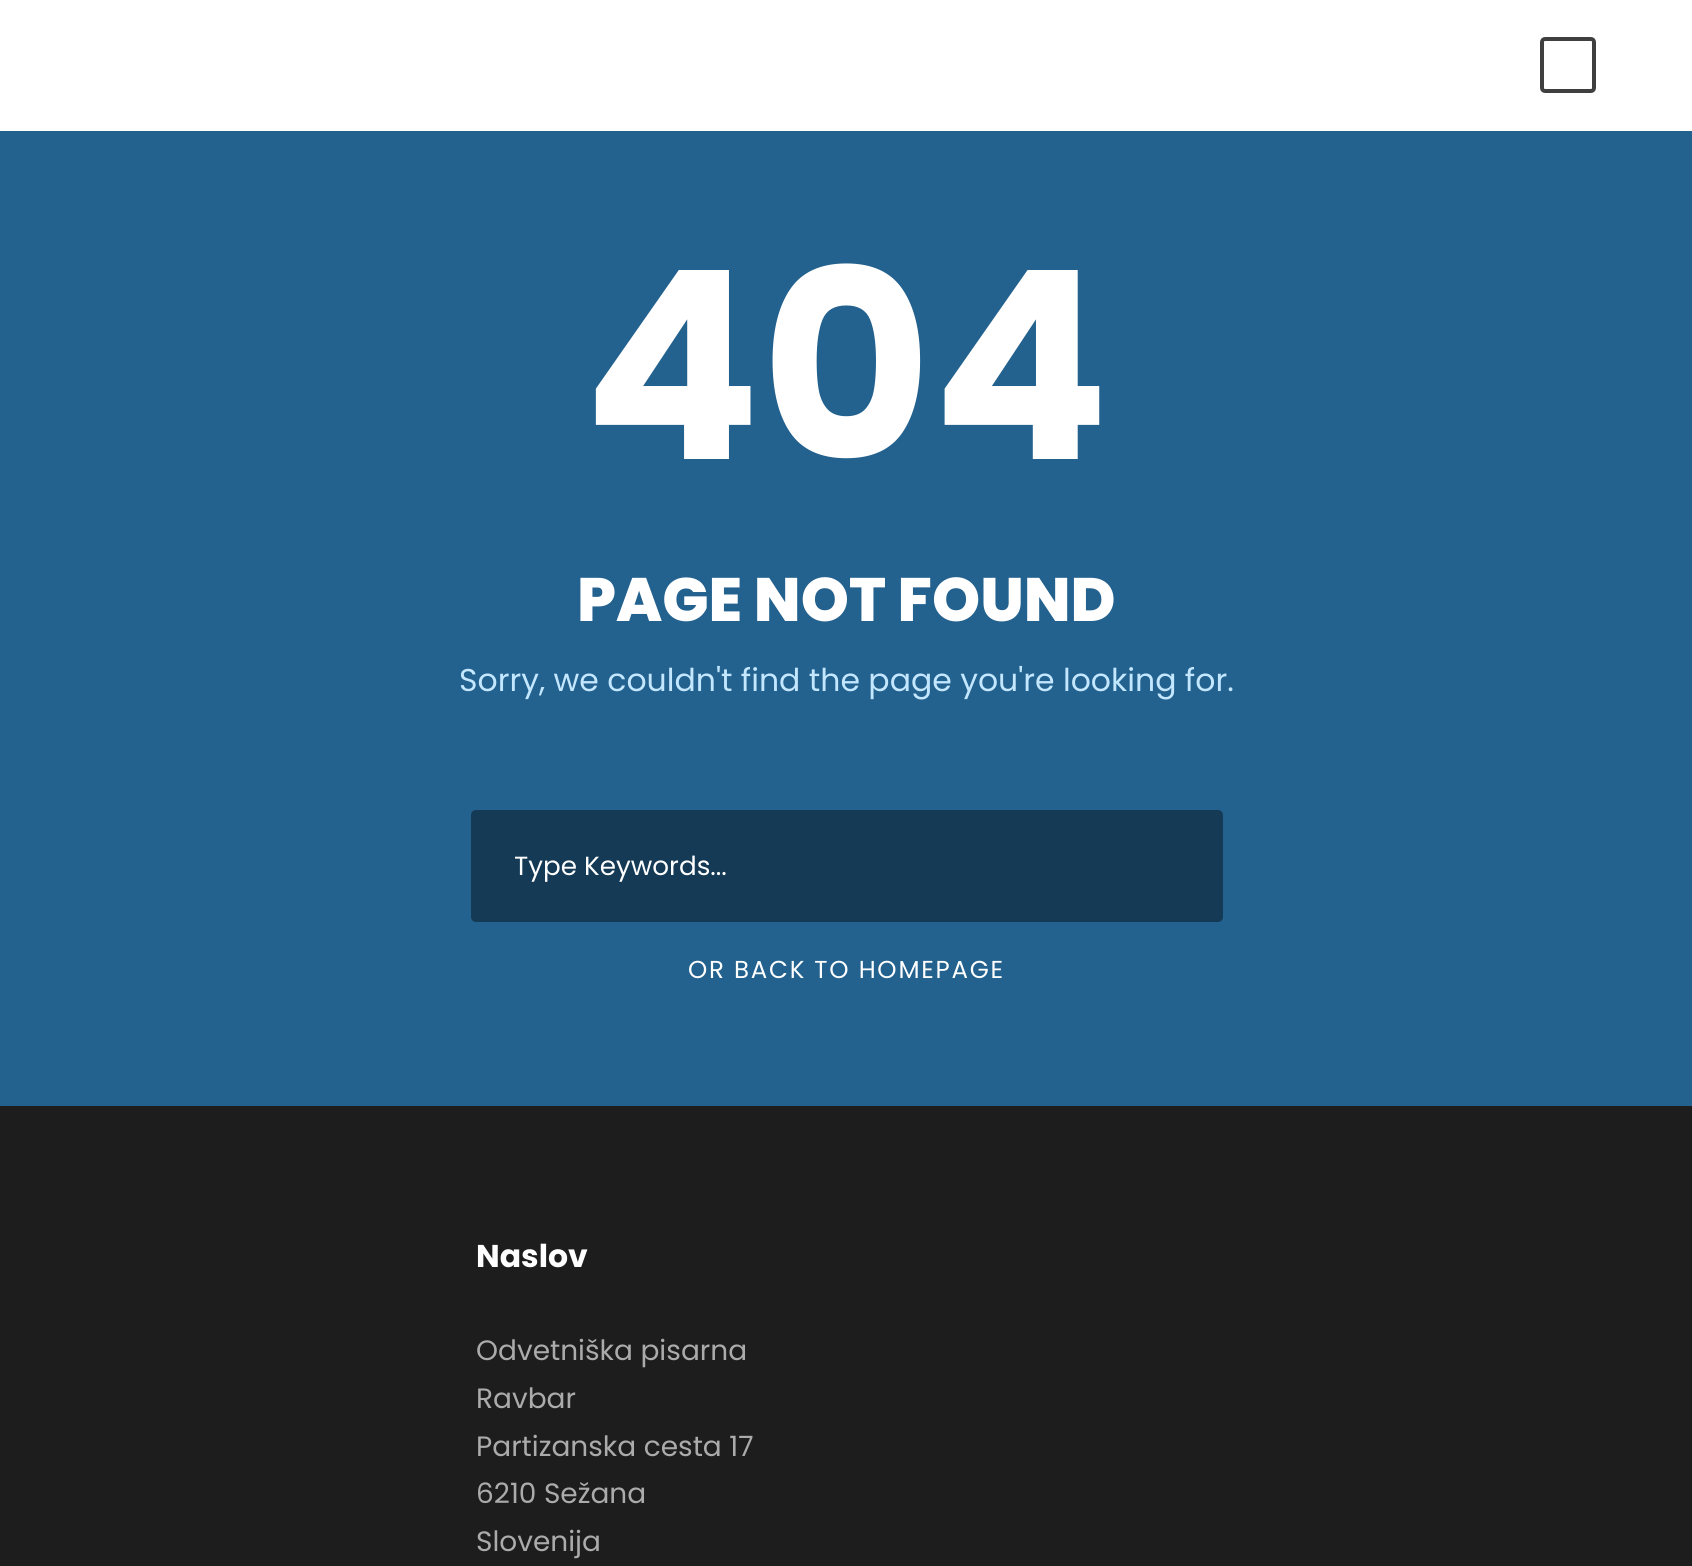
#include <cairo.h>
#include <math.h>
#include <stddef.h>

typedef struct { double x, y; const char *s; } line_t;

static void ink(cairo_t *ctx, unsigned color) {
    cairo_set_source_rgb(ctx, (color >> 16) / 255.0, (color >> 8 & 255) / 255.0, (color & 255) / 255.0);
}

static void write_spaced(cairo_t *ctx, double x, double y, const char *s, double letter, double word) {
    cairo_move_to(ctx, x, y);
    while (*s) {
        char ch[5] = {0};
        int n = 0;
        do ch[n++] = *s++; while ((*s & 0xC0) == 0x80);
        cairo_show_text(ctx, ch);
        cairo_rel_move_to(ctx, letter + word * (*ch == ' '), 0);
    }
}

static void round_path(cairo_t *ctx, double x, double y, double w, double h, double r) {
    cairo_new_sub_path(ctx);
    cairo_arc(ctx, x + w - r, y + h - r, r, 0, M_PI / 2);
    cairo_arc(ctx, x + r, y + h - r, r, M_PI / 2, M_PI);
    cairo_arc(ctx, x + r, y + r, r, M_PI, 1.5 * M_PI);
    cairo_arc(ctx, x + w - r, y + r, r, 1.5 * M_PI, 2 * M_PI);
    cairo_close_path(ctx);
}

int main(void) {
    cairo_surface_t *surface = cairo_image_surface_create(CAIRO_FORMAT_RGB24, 1692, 1566);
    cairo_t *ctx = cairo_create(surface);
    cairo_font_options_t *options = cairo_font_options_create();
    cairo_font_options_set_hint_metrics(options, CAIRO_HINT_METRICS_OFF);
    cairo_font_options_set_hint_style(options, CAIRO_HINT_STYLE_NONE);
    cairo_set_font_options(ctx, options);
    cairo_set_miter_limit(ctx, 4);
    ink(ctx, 0xFFFFFF);
    cairo_paint(ctx);
    round_path(ctx, 1542, 39, 52, 52, 3);
    ink(ctx, 0x3F3F3F);
    cairo_set_line_width(ctx, 4);
    cairo_stroke(ctx);
    ink(ctx, 0x23618E);
    cairo_rectangle(ctx, 0, 131, 1692, 975);
    cairo_fill(ctx);
    cairo_select_font_face(ctx, "Poppins", CAIRO_FONT_SLANT_NORMAL, CAIRO_FONT_WEIGHT_BOLD);
    cairo_set_font_size(ctx, 262.5);
    ink(ctx, 0xFFFFFF);
    cairo_move_to(ctx, 583, 459);
    cairo_show_text(ctx, "404");
    cairo_select_font_face(ctx, "Poppins ExtraBold", CAIRO_FONT_SLANT_NORMAL, CAIRO_FONT_WEIGHT_NORMAL);
    cairo_set_font_size(ctx, 61.25);
    cairo_move_to(ctx, 577, 621);
    cairo_show_text(ctx, "PAGE NOT FOUND");
    cairo_select_font_face(ctx, "Poppins", CAIRO_FONT_SLANT_NORMAL, CAIRO_FONT_WEIGHT_NORMAL);
    cairo_set_font_size(ctx, 31.5);
    ink(ctx, 0xC3E7FF);
    cairo_move_to(ctx, 459, 691);
    cairo_show_text(ctx, "Sorry, we couldn't find the page you're looking for.");
    ink(ctx, 0x153A55);
    round_path(ctx, 471, 810, 752, 112, 5);
    cairo_fill(ctx);
    cairo_save(ctx);
    cairo_rectangle(ctx, 515, 845, 603, 41);
    cairo_clip(ctx);
    cairo_set_font_size(ctx, 26.25);
    ink(ctx, 0xFFFFFF);
    cairo_move_to(ctx, 514, 875);
    cairo_show_text(ctx, "Type Keywords...");
    cairo_restore(ctx);
    cairo_set_font_size(ctx, 24.5);
    ink(ctx, 0xFFFFFF);
    write_spaced(ctx, 688, 978, "OR BACK TO HOMEPAGE", 1.75, 0);
    ink(ctx, 0x1D1D1D);
    cairo_rectangle(ctx, 0, 1106, 1692, 460);
    cairo_fill(ctx);
    cairo_select_font_face(ctx, "Poppins", CAIRO_FONT_SLANT_NORMAL, CAIRO_FONT_WEIGHT_BOLD);
    cairo_set_font_size(ctx, 31.5);
    ink(ctx, 0xFFFFFF);
    cairo_move_to(ctx, 476, 1267);
    cairo_show_text(ctx, "Naslov");
    cairo_select_font_face(ctx, "Poppins", CAIRO_FONT_SLANT_NORMAL, CAIRO_FONT_WEIGHT_NORMAL);
    cairo_set_font_size(ctx, 28);
    ink(ctx, 0xABABAB);
    {
        static const line_t items[] = {
            {476, 1360, "Odvetniška pisarna"},
            {476, 1408, "Ravbar"},
            {476, 1456, "Partizanska cesta 17"},
            {476, 1503, "6210 Sežana"},
            {476, 1551, "Slovenija"},
        };
        for (size_t i = 0; i < sizeof items / sizeof *items; i++) {
            cairo_move_to(ctx, items[i].x, items[i].y);
            cairo_show_text(ctx, items[i].s);
        }
    }
    cairo_surface_write_to_png(surface, "image.png");
    cairo_font_options_destroy(options);
    cairo_destroy(ctx);
    cairo_surface_destroy(surface);
    return 0;
}
